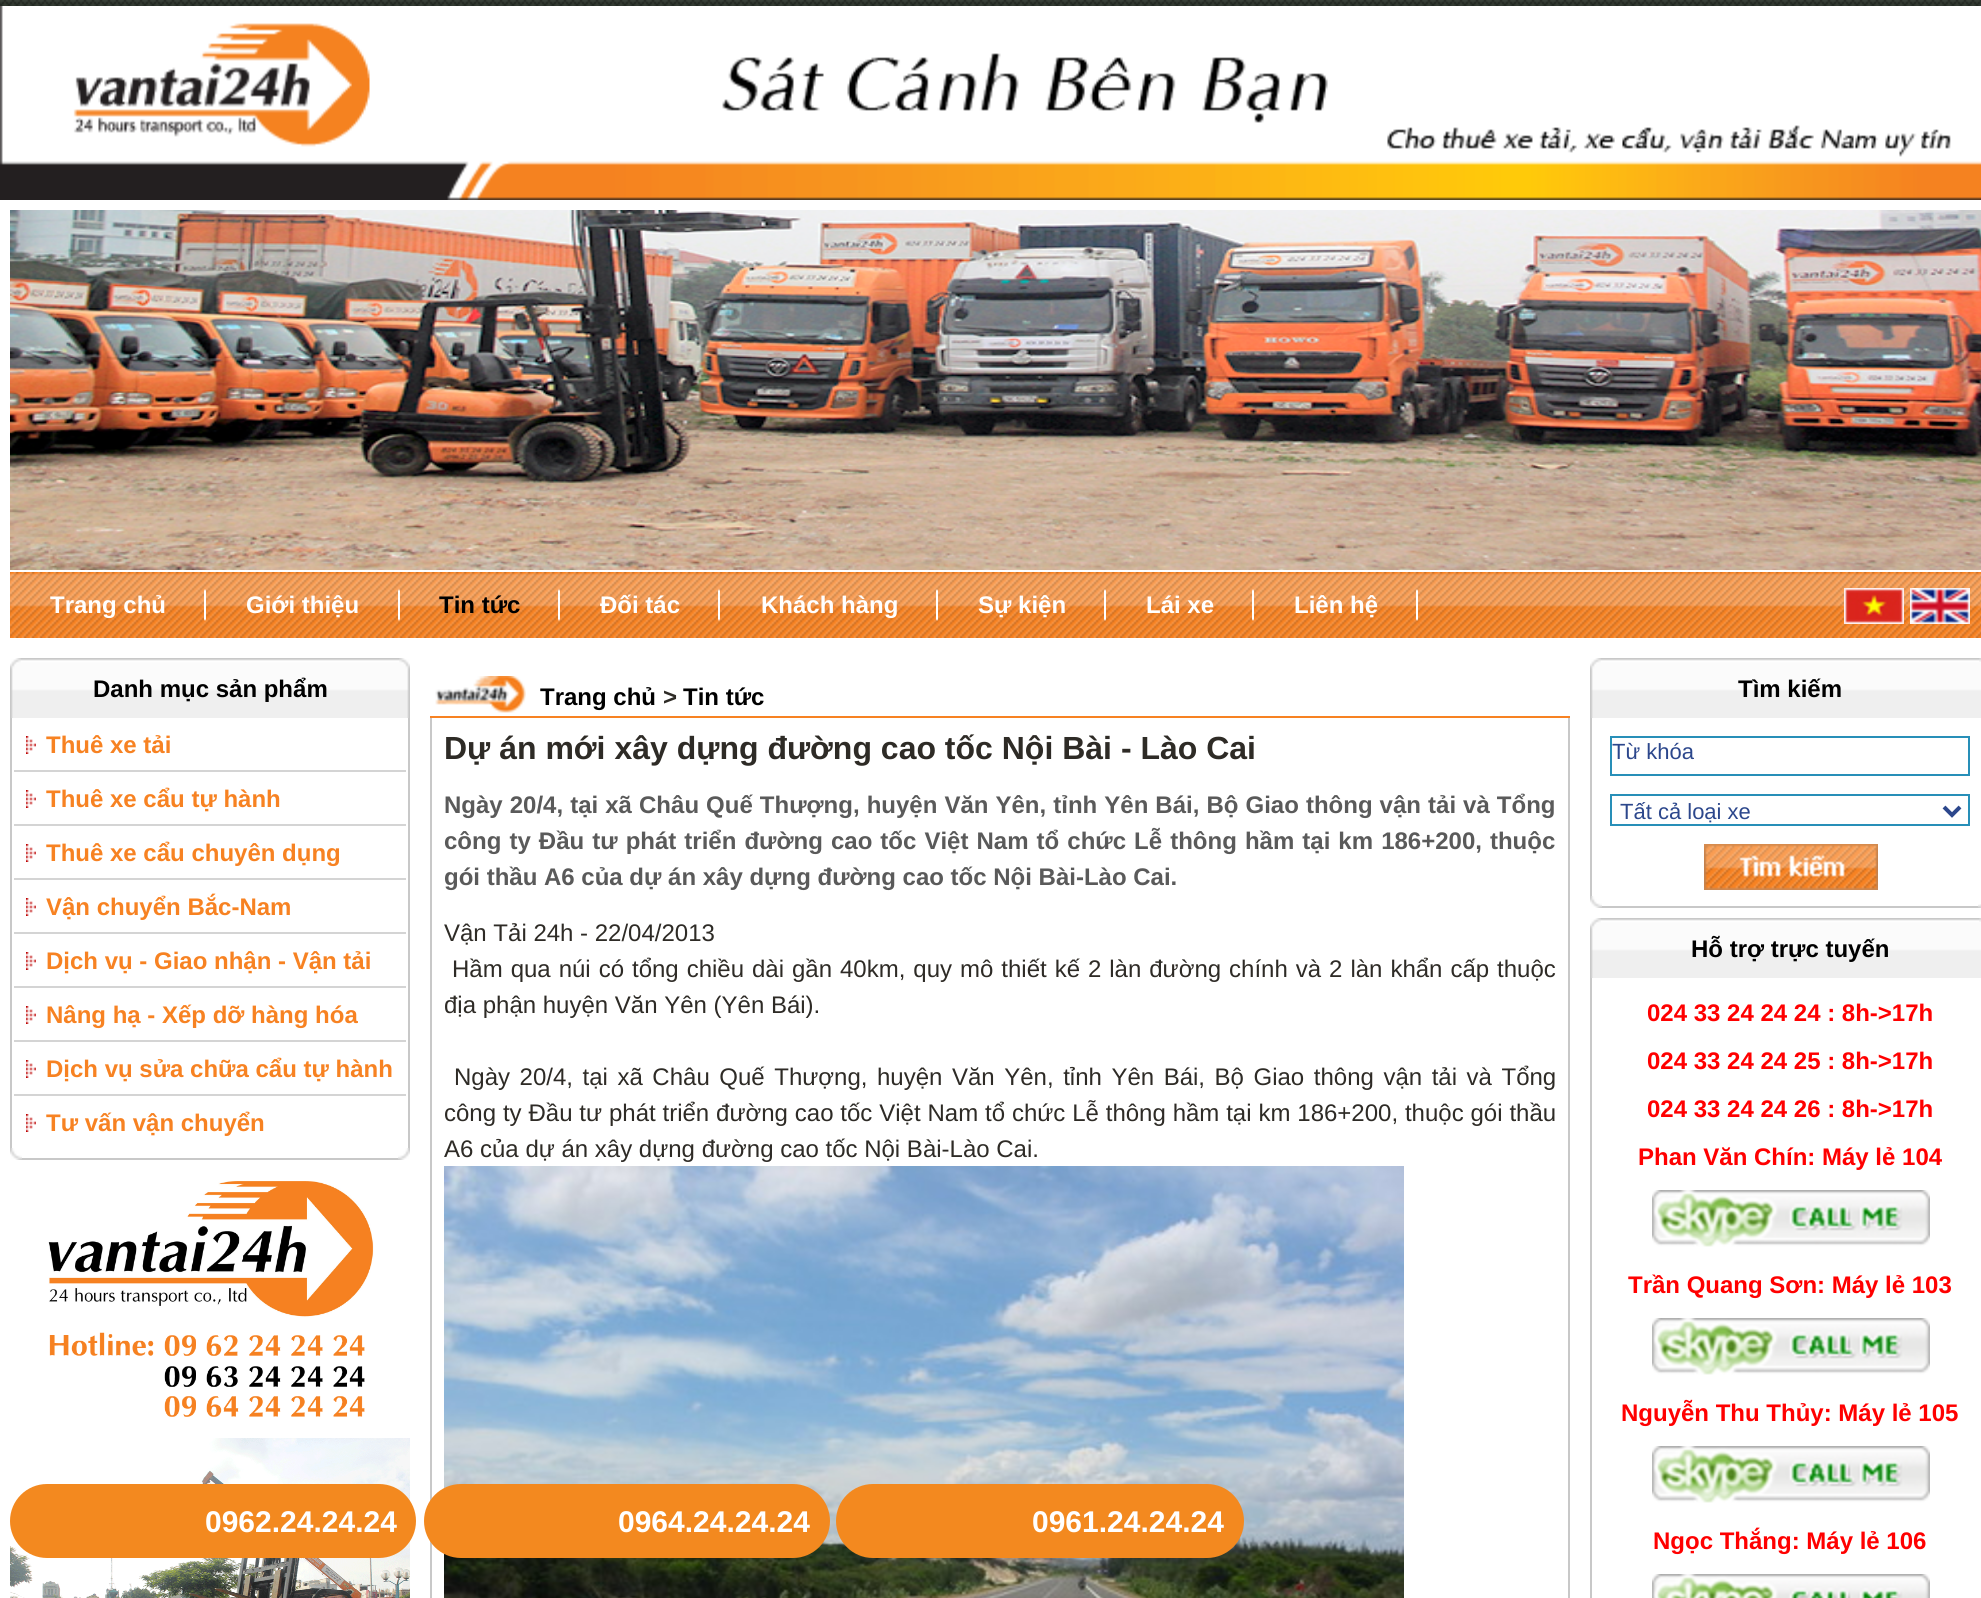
#include <cairo.h>
#include <math.h>
#include <stddef.h>

typedef struct { double x, y; const char *s; } line_t;

static void ink(cairo_t *ctx, unsigned color) {
    cairo_set_source_rgb(ctx, (color >> 16) / 255.0, (color >> 8 & 255) / 255.0, (color & 255) / 255.0);
}

static void write_spaced(cairo_t *ctx, double x, double y, const char *s, double letter, double word) {
    cairo_move_to(ctx, x, y);
    while (*s) {
        char ch[5] = {0};
        int n = 0;
        do ch[n++] = *s++; while ((*s & 0xC0) == 0x80);
        cairo_show_text(ctx, ch);
        cairo_rel_move_to(ctx, letter + word * (*ch == ' '), 0);
    }
}

static void round_path(cairo_t *ctx, double x, double y, double w, double h, double r) {
    cairo_new_sub_path(ctx);
    cairo_arc(ctx, x + w - r, y + h - r, r, 0, M_PI / 2);
    cairo_arc(ctx, x + r, y + h - r, r, M_PI / 2, M_PI);
    cairo_arc(ctx, x + r, y + r, r, M_PI, 1.5 * M_PI);
    cairo_arc(ctx, x + w - r, y + r, r, 1.5 * M_PI, 2 * M_PI);
    cairo_close_path(ctx);
}

static void paste(cairo_t *ctx, const char *path, double x, double y, double w, double h) {
    cairo_surface_t *image = cairo_image_surface_create_from_png(path);
    cairo_save(ctx);
    cairo_set_source_surface(ctx, image, x, y);
    cairo_rectangle(ctx, x, y, w, h);
    cairo_fill(ctx);
    cairo_restore(ctx);
    cairo_surface_destroy(image);
}

int main(void) {
    cairo_surface_t *surface = cairo_image_surface_create(CAIRO_FORMAT_RGB24, 1981, 1598);
    cairo_t *ctx = cairo_create(surface);
    cairo_font_options_t *options = cairo_font_options_create();
    cairo_font_options_set_hint_metrics(options, CAIRO_HINT_METRICS_OFF);
    cairo_font_options_set_hint_style(options, CAIRO_HINT_STYLE_NONE);
    cairo_set_font_options(ctx, options);
    cairo_set_miter_limit(ctx, 4);
    ink(ctx, 0xFFFFFF);
    cairo_paint(ctx);
    paste(ctx, "media/1.png", 0, 0, 1981, 6);
    paste(ctx, "media/2.png", 0, 6, 1981, 194);
    paste(ctx, "media/3.png", 10, 210, 1971, 360);
    paste(ctx, "media/4.png", 10, 572, 1971, 66);
    paste(ctx, "media/5.png", 204, 589, 2, 32);
    cairo_select_font_face(ctx, "Liberation Sans", CAIRO_FONT_SLANT_NORMAL, CAIRO_FONT_WEIGHT_BOLD);
    cairo_set_font_size(ctx, 24);
    ink(ctx, 0xFFFFFF);
    cairo_move_to(ctx, 50, 613);
    cairo_show_text(ctx, "Trang chủ");
    paste(ctx, "media/6.png", 398, 589, 2, 32);
    cairo_move_to(ctx, 246, 613);
    cairo_show_text(ctx, "Giới thiệu");
    paste(ctx, "media/6.png", 558, 589, 2, 32);
    ink(ctx, 0x000000);
    cairo_move_to(ctx, 439, 613);
    cairo_show_text(ctx, "Tin tức");
    paste(ctx, "media/6.png", 718, 589, 2, 32);
    ink(ctx, 0xFFFFFF);
    cairo_move_to(ctx, 600, 613);
    cairo_show_text(ctx, "Đối tác");
    paste(ctx, "media/7.png", 936, 589, 2, 32);
    cairo_move_to(ctx, 761, 613);
    cairo_show_text(ctx, "Khách hàng");
    paste(ctx, "media/8.png", 1104, 589, 2, 32);
    cairo_move_to(ctx, 978, 613);
    cairo_show_text(ctx, "Sự kiện");
    paste(ctx, "media/9.png", 1252, 589, 2, 32);
    cairo_move_to(ctx, 1146, 613);
    cairo_show_text(ctx, "Lái xe");
    paste(ctx, "media/7.png", 1416, 589, 2, 32);
    cairo_move_to(ctx, 1294, 613);
    cairo_show_text(ctx, "Liên hệ");
    paste(ctx, "media/10.png", 1844, 588, 60, 36);
    paste(ctx, "media/11.png", 1910, 588, 60, 36);
    paste(ctx, "media/12.png", 21, 658, 378, 60);
    paste(ctx, "media/13.png", 10, 658, 11, 60);
    paste(ctx, "media/14.png", 399, 658, 11, 60);
    ink(ctx, 0x000000);
    cairo_move_to(ctx, 93, 697);
    cairo_show_text(ctx, "Danh mục sản phẩm");
    ink(ctx, 0xC8C8C8);
    cairo_rectangle(ctx, 408, 718, 2, 430);
    cairo_fill(ctx);
    cairo_rectangle(ctx, 10, 718, 2, 430);
    cairo_fill(ctx);
    paste(ctx, "media/15.png", 26, 736, 10, 18);
    ink(ctx, 0xF78222);
    cairo_move_to(ctx, 46, 753);
    cairo_show_text(ctx, "Thuê xe tải");
    ink(ctx, 0xD4D4D4);
    cairo_rectangle(ctx, 14, 770, 392, 2);
    cairo_fill(ctx);
    paste(ctx, "media/15.png", 26, 790, 10, 18);
    ink(ctx, 0xF78222);
    cairo_move_to(ctx, 46, 807);
    cairo_show_text(ctx, "Thuê xe cẩu tự hành");
    ink(ctx, 0xD4D4D4);
    cairo_rectangle(ctx, 14, 824, 392, 2);
    cairo_fill(ctx);
    paste(ctx, "media/15.png", 26, 844, 10, 18);
    ink(ctx, 0xF78222);
    cairo_move_to(ctx, 46, 861);
    cairo_show_text(ctx, "Thuê xe cẩu chuyên dụng");
    ink(ctx, 0xD4D4D4);
    cairo_rectangle(ctx, 14, 878, 392, 2);
    cairo_fill(ctx);
    paste(ctx, "media/15.png", 26, 898, 10, 18);
    ink(ctx, 0xF78222);
    cairo_move_to(ctx, 46, 915);
    cairo_show_text(ctx, "Vận chuyển Bắc-Nam");
    ink(ctx, 0xD4D4D4);
    cairo_rectangle(ctx, 14, 932, 392, 2);
    cairo_fill(ctx);
    paste(ctx, "media/15.png", 26, 952, 10, 18);
    ink(ctx, 0xF78222);
    cairo_move_to(ctx, 46, 969);
    cairo_show_text(ctx, "Dịch vụ - Giao nhận - Vận tải");
    ink(ctx, 0xD4D4D4);
    cairo_rectangle(ctx, 14, 986, 392, 2);
    cairo_fill(ctx);
    paste(ctx, "media/15.png", 26, 1006, 10, 18);
    ink(ctx, 0xF78222);
    cairo_move_to(ctx, 46, 1023);
    cairo_show_text(ctx, "Nâng hạ - Xếp dỡ hàng hóa");
    ink(ctx, 0xD4D4D4);
    cairo_rectangle(ctx, 14, 1040, 392, 2);
    cairo_fill(ctx);
    paste(ctx, "media/15.png", 26, 1060, 10, 18);
    ink(ctx, 0xF78222);
    cairo_move_to(ctx, 46, 1077);
    cairo_show_text(ctx, "Dịch vụ sửa chữa cẩu tự hành");
    ink(ctx, 0xD4D4D4);
    cairo_rectangle(ctx, 14, 1094, 392, 2);
    cairo_fill(ctx);
    paste(ctx, "media/15.png", 26, 1114, 10, 18);
    ink(ctx, 0xF78222);
    cairo_move_to(ctx, 46, 1131);
    cairo_show_text(ctx, "Tư vấn vận chuyển");
    ink(ctx, 0xC8C8C8);
    cairo_rectangle(ctx, 22, 1158, 376, 2);
    cairo_fill(ctx);
    paste(ctx, "media/16.png", 10, 1148, 12, 12);
    paste(ctx, "media/17.png", 398, 1148, 12, 12);
    paste(ctx, "media/18.png", 48, 1181, 326, 236);
    paste(ctx, "media/19.png", 10, 1438, 400, 160);
    paste(ctx, "media/20.png", 435, 676, 91, 37);
    ink(ctx, 0xF78222);
    cairo_rectangle(ctx, 430, 716, 1140, 2);
    cairo_fill(ctx);
    ink(ctx, 0x000000);
    cairo_move_to(ctx, 540, 705);
    cairo_show_text(ctx, "Trang chủ");
    ink(ctx, 0x2E2B26);
    cairo_move_to(ctx, 663, 705);
    cairo_show_text(ctx, ">");
    ink(ctx, 0x000000);
    cairo_move_to(ctx, 683, 705);
    cairo_show_text(ctx, "Tin tức");
    ink(ctx, 0xC8C8C8);
    cairo_rectangle(ctx, 1568, 718, 2, 880);
    cairo_fill(ctx);
    cairo_rectangle(ctx, 430, 718, 2, 880);
    cairo_fill(ctx);
    cairo_set_font_size(ctx, 32);
    ink(ctx, 0x2E2B26);
    cairo_move_to(ctx, 444, 759);
    cairo_show_text(ctx, "Dự án mới xây dựng đường cao tốc Nội Bài - Lào Cai");
    cairo_set_font_size(ctx, 24);
    ink(ctx, 0x5A5A5A);
    write_spaced(ctx, 444, 813, "Ngày 20/4, tại xã Châu Quế Thượng, huyện Văn Yên, tỉnh Yên Bái, Bộ Giao thông vận tải và Tổng", 0, 0.4);
    write_spaced(ctx, 444, 849, "công ty Đầu tư phát triển đường cao tốc Việt Nam tổ chức Lễ thông hầm tại km 186+200, thuộc", 0, 1.4);
    cairo_move_to(ctx, 444, 885);
    cairo_show_text(ctx, "gói thầu A6 của dự án xây dựng đường cao tốc Nội Bài-Lào Cai.");
    cairo_select_font_face(ctx, "Liberation Sans", CAIRO_FONT_SLANT_NORMAL, CAIRO_FONT_WEIGHT_NORMAL);
    ink(ctx, 0x2E2B26);
    cairo_move_to(ctx, 444, 941);
    cairo_show_text(ctx, "Vận Tải 24h - 22/04/2013");
    write_spaced(ctx, 452, 977, "Hầm qua núi có tổng chiều dài gần 40km, quy mô thiết kế 2 làn đường chính và 2 làn khẩn cấp thuộc", 0, 1.3);
    cairo_move_to(ctx, 444, 1013);
    cairo_show_text(ctx, "địa phận huyện Văn Yên (Yên Bái).");
    write_spaced(ctx, 454, 1085, "Ngày 20/4, tại xã Châu Quế Thượng, huyện Văn Yên, tỉnh Yên Bái, Bộ Giao thông vận tải và Tổng", 0, 2.9);
    write_spaced(ctx, 444, 1121, "công ty Đầu tư phát triển đường cao tốc Việt Nam tổ chức Lễ thông hầm tại km 186+200, thuộc gói thầu", 0, 0.2);
    cairo_move_to(ctx, 444, 1157);
    cairo_show_text(ctx, "A6 của dự án xây dựng đường cao tốc Nội Bài-Lào Cai.");
    paste(ctx, "media/21.png", 444, 1166, 960, 432);
    paste(ctx, "media/22.png", 1601, 658, 380, 60);
    paste(ctx, "media/13.png", 1590, 658, 11, 60);
    paste(ctx, "media/23.png", 1979, 658, 2, 4);
    cairo_select_font_face(ctx, "Liberation Sans", CAIRO_FONT_SLANT_NORMAL, CAIRO_FONT_WEIGHT_BOLD);
    ink(ctx, 0x000000);
    cairo_move_to(ctx, 1738, 697);
    cairo_show_text(ctx, "Tìm kiếm");
    ink(ctx, 0xC8C8C8);
    cairo_rectangle(ctx, 1590, 718, 2, 178);
    cairo_fill(ctx);
    cairo_rectangle(ctx, 1611, 737, 358, 38);
    ink(ctx, 0x288FB8);
    cairo_stroke(ctx);
    cairo_select_font_face(ctx, "Liberation Sans", CAIRO_FONT_SLANT_NORMAL, CAIRO_FONT_WEIGHT_NORMAL);
    cairo_set_font_size(ctx, 22);
    ink(ctx, 0x2C478C);
    cairo_move_to(ctx, 1612, 759);
    cairo_show_text(ctx, "Từ khóa");
    cairo_rectangle(ctx, 1611, 795, 358, 30);
    ink(ctx, 0x288FB8);
    cairo_stroke(ctx);
    cairo_new_path(ctx);
    cairo_move_to(ctx, 1944, 807);
    cairo_line_to(ctx, 1952, 815);
    cairo_line_to(ctx, 1960, 807);
    ink(ctx, 0x2C478C);
    cairo_set_line_width(ctx, 4);
    cairo_stroke(ctx);
    cairo_move_to(ctx, 1620, 819);
    cairo_show_text(ctx, "Tất cả loại xe");
    paste(ctx, "media/24.png", 1704, 844, 174, 46);
    ink(ctx, 0xC8C8C8);
    cairo_rectangle(ctx, 1602, 906, 379, 2);
    cairo_fill(ctx);
    paste(ctx, "media/16.png", 1590, 896, 12, 12);
    paste(ctx, "media/25.png", 1978, 904, 3, 4);
    paste(ctx, "media/22.png", 1601, 918, 380, 60);
    paste(ctx, "media/13.png", 1590, 918, 11, 60);
    paste(ctx, "media/23.png", 1979, 918, 2, 4);
    cairo_select_font_face(ctx, "Liberation Sans", CAIRO_FONT_SLANT_NORMAL, CAIRO_FONT_WEIGHT_BOLD);
    cairo_set_font_size(ctx, 24);
    ink(ctx, 0x000000);
    cairo_move_to(ctx, 1691, 957);
    cairo_show_text(ctx, "Hỗ trợ trực tuyến");
    ink(ctx, 0xC8C8C8);
    cairo_rectangle(ctx, 1590, 978, 2, 620);
    cairo_fill(ctx);
    ink(ctx, 0xFF0000);
    {
        static const line_t items[] = {
            {1647, 1021, "024 33 24 24 24 : 8h->17h"},
            {1647, 1069, "024 33 24 24 25 : 8h->17h"},
            {1647, 1117, "024 33 24 24 26 : 8h->17h"},
            {1638, 1165, "Phan Văn Chín: Máy lẻ 104"},
        };
        for (size_t i = 0; i < sizeof items / sizeof *items; i++) {
            cairo_move_to(ctx, items[i].x, items[i].y);
            cairo_show_text(ctx, items[i].s);
        }
    }
    paste(ctx, "media/26.png", 1652, 1190, 278, 57);
    cairo_move_to(ctx, 1628, 1293);
    cairo_show_text(ctx, "Trần Quang Sơn: Máy lẻ 103");
    paste(ctx, "media/26.png", 1652, 1318, 278, 57);
    cairo_move_to(ctx, 1621, 1421);
    cairo_show_text(ctx, "Nguyễn Thu Thủy: Máy lẻ 105");
    paste(ctx, "media/26.png", 1652, 1446, 278, 57);
    cairo_move_to(ctx, 1653, 1549);
    cairo_show_text(ctx, "Ngọc Thắng: Máy lẻ 106");
    paste(ctx, "media/27.png", 1652, 1574, 278, 24);
    ink(ctx, 0xF3891F);
    round_path(ctx, 10, 1484, 406, 74, 37);
    cairo_fill(ctx);
    cairo_set_font_size(ctx, 30);
    ink(ctx, 0xFFFFFF);
    cairo_move_to(ctx, 205, 1532);
    cairo_show_text(ctx, "0962.24.24.24");
    ink(ctx, 0xF3891F);
    round_path(ctx, 424, 1484, 406, 74, 37);
    cairo_fill(ctx);
    ink(ctx, 0xFFFFFF);
    cairo_move_to(ctx, 618, 1532);
    cairo_show_text(ctx, "0964.24.24.24");
    ink(ctx, 0xF3891F);
    round_path(ctx, 836, 1484, 408, 74, 37);
    cairo_fill(ctx);
    ink(ctx, 0xFFFFFF);
    cairo_move_to(ctx, 1032, 1532);
    cairo_show_text(ctx, "0961.24.24.24");
    cairo_surface_write_to_png(surface, "image.png");
    cairo_font_options_destroy(options);
    cairo_destroy(ctx);
    cairo_surface_destroy(surface);
    return 0;
}
